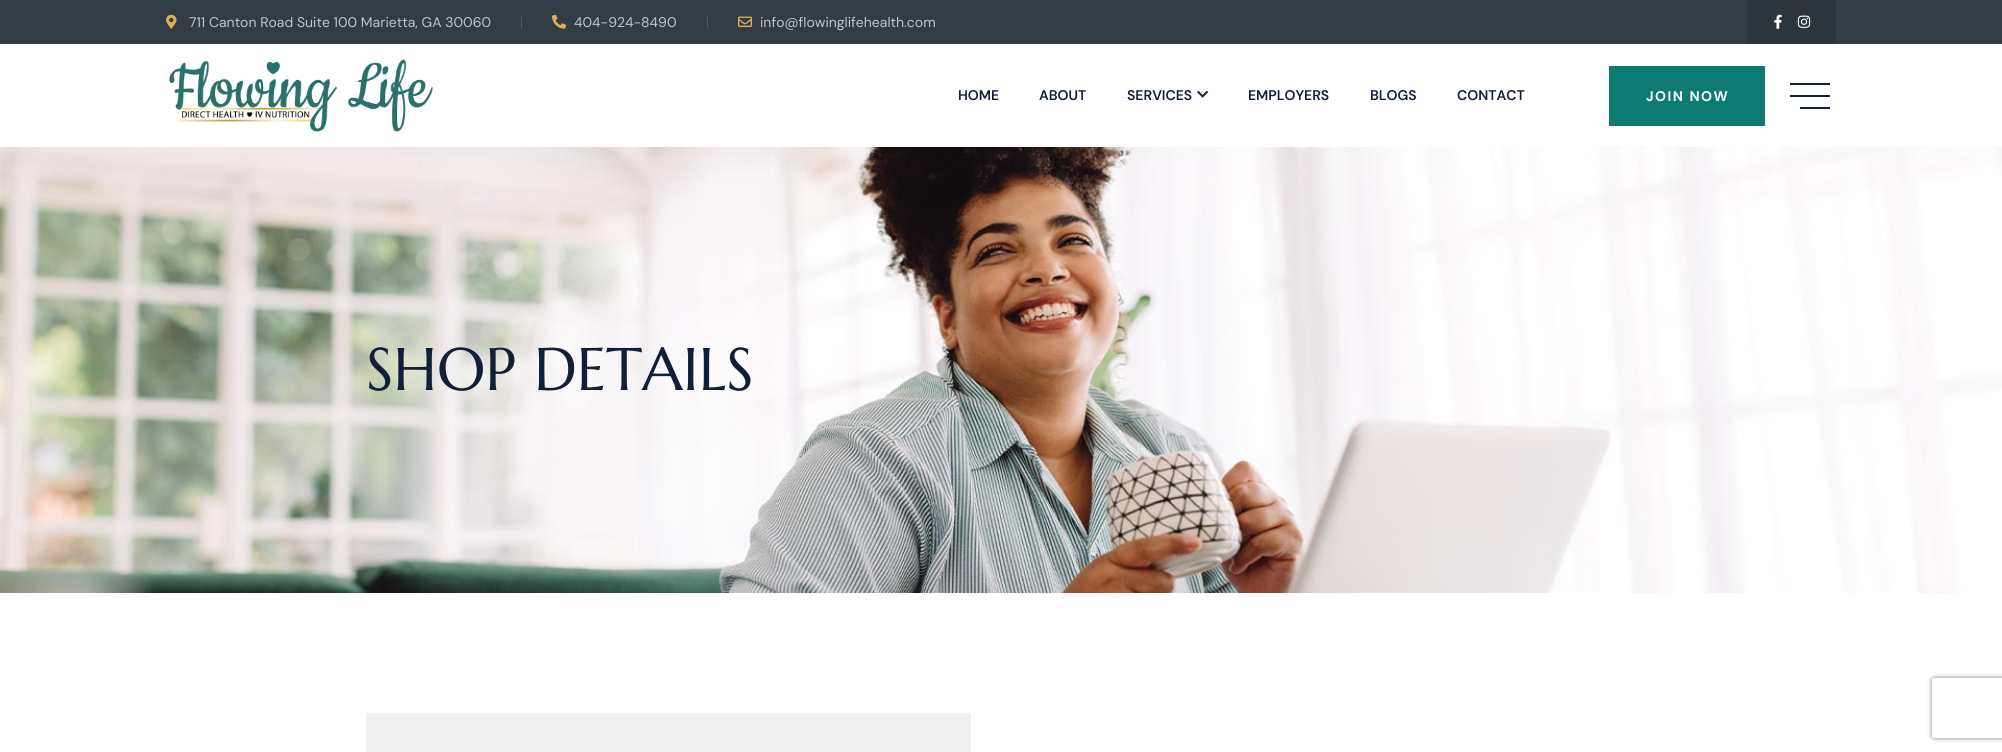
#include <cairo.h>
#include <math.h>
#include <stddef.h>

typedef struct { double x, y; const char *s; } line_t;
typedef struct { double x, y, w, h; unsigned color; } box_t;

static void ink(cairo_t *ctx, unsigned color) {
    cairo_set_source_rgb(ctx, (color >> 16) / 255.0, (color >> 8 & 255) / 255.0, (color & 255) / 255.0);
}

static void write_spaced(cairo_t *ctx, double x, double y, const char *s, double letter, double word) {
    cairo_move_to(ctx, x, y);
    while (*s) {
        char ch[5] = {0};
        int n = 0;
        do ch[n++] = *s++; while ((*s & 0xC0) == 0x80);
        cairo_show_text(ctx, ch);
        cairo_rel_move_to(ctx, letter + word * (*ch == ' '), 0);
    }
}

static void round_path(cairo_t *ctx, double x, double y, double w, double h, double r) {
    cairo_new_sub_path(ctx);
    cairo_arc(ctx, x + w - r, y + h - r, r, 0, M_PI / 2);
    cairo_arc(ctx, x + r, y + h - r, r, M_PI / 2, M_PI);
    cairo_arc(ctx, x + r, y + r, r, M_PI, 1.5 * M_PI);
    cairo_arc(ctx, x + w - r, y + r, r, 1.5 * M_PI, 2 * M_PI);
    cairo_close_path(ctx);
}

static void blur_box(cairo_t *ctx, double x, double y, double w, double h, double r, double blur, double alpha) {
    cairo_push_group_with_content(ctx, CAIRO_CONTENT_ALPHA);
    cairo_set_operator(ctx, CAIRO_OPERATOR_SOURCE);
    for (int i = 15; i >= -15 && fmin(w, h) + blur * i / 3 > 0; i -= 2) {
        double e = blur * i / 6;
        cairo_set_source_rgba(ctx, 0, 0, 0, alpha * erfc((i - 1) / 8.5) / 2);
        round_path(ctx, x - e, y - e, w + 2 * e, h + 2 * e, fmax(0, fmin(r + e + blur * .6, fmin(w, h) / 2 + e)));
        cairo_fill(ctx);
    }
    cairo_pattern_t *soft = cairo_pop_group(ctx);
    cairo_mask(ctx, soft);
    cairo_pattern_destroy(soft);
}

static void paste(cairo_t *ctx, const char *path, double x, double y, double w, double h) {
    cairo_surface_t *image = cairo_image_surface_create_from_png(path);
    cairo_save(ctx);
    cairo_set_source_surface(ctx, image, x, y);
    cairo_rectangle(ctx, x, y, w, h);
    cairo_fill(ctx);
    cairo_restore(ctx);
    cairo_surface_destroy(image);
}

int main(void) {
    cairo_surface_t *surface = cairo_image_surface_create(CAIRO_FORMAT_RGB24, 2002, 752);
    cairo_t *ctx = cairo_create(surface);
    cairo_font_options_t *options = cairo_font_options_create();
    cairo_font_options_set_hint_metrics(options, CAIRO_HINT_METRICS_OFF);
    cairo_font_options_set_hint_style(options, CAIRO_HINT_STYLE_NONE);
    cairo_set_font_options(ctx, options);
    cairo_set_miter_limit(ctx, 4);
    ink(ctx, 0xFFFFFF);
    cairo_paint(ctx);
    ink(ctx, 0x313C45);
    cairo_rectangle(ctx, 0, 0, 2002, 44);
    cairo_fill(ctx);
    paste(ctx, "media/1.png", 166, 14, 11, 15);
    cairo_select_font_face(ctx, "DM Sans", CAIRO_FONT_SLANT_NORMAL, CAIRO_FONT_WEIGHT_NORMAL);
    cairo_set_font_size(ctx, 14);
    ink(ctx, 0xC1C5C7);
    cairo_move_to(ctx, 189, 27);
    cairo_show_text(ctx, "711 Canton Road Suite 100 Marietta, GA 30060");
    ink(ctx, 0x505961);
    cairo_rectangle(ctx, 521, 16, 1, 12);
    cairo_fill(ctx);
    paste(ctx, "media/2.png", 552, 14, 14, 15);
    ink(ctx, 0xC1C5C7);
    cairo_move_to(ctx, 574, 27);
    cairo_show_text(ctx, "404-924-8490");
    ink(ctx, 0x505961);
    cairo_rectangle(ctx, 707, 16, 1, 12);
    cairo_fill(ctx);
    paste(ctx, "media/3.png", 738, 16, 14, 11);
    ink(ctx, 0xC1C5C7);
    cairo_move_to(ctx, 760, 27);
    cairo_show_text(ctx, "info@flowinglifehealth.com");
    ink(ctx, 0x2D353C);
    cairo_rectangle(ctx, 1746, 0, 90, 44);
    cairo_fill(ctx);
    paste(ctx, "media/4.png", 1774, 14, 8, 15);
    paste(ctx, "media/5.png", 1797, 15, 14, 13);
    paste(ctx, "media/6.png", 169, 59, 264, 73);
    cairo_select_font_face(ctx, "DM Sans SemiBold", CAIRO_FONT_SLANT_NORMAL, CAIRO_FONT_WEIGHT_NORMAL);
    ink(ctx, 0x121F38);
    {
        static const line_t items[] = {
            {958, 100, "HOME"},
            {1039, 100, "ABOUT"},
            {1127, 100, "SERVICES"},
        };
        for (size_t i = 0; i < sizeof items / sizeof *items; i++) {
            cairo_move_to(ctx, items[i].x, items[i].y);
            cairo_show_text(ctx, items[i].s);
        }
    }
    paste(ctx, "media/7.png", 1197, 90, 11, 8);
    {
        static const line_t items[] = {
            {1248, 100, "EMPLOYERS"},
            {1370, 100, "BLOGS"},
            {1457, 100, "CONTACT"},
        };
        for (size_t i = 0; i < sizeof items / sizeof *items; i++) {
            cairo_move_to(ctx, items[i].x, items[i].y);
            cairo_show_text(ctx, items[i].s);
        }
    }
    ink(ctx, 0x0E7A74);
    cairo_rectangle(ctx, 1609, 66, 156, 60);
    cairo_fill(ctx);
    cairo_select_font_face(ctx, "DM Sans", CAIRO_FONT_SLANT_NORMAL, CAIRO_FONT_WEIGHT_BOLD);
    ink(ctx, 0xFFFFFF);
    write_spaced(ctx, 1646, 101, "JOIN NOW", 1.5, 0);
    {
        static const box_t items[] = {
            {1790, 83, 40, 2, 0x121F38},
            {1790, 95, 40, 2, 0x121F38},
            {1800, 107, 30, 2, 0x121F38},
        };
        for (size_t i = 0; i < sizeof items / sizeof *items; i++) {
            ink(ctx, items[i].color);
            cairo_rectangle(ctx, items[i].x, items[i].y, items[i].w, items[i].h);
            cairo_fill(ctx);
        }
    }
    paste(ctx, "media/8.png", 0, 147, 2002, 446);
    cairo_select_font_face(ctx, "Marcellus", CAIRO_FONT_SLANT_NORMAL, CAIRO_FONT_WEIGHT_NORMAL);
    cairo_set_font_size(ctx, 60);
    cairo_move_to(ctx, 366, 390);
    cairo_show_text(ctx, "SHOP DETAILS");
    ink(ctx, 0xF1F1F1);
    cairo_rectangle(ctx, 366, 713, 605, 39);
    cairo_fill(ctx);
    cairo_save(ctx);
    cairo_set_fill_rule(ctx, CAIRO_FILL_RULE_EVEN_ODD);
    cairo_new_path(ctx);
    cairo_move_to(ctx, 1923, 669);
    cairo_line_to(ctx, 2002, 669);
    cairo_line_to(ctx, 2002, 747);
    cairo_line_to(ctx, 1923, 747);
    cairo_close_path(ctx);
    cairo_move_to(ctx, 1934, 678);
    cairo_line_to(ctx, 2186, 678);
    cairo_curve_to(ctx, 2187, 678, 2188, 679, 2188, 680);
    cairo_line_to(ctx, 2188, 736);
    cairo_curve_to(ctx, 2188, 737, 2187, 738, 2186, 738);
    cairo_line_to(ctx, 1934, 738);
    cairo_curve_to(ctx, 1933, 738, 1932, 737, 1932, 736);
    cairo_line_to(ctx, 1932, 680);
    cairo_curve_to(ctx, 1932, 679, 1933, 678, 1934, 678);
    cairo_close_path(ctx);
    cairo_clip(ctx);
    ink(ctx, 0x808080);
    blur_box(ctx, 1932, 678, 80, 60, 2, 2.5, 1);
    cairo_restore(ctx);
    cairo_surface_write_to_png(surface, "image.png");
    cairo_font_options_destroy(options);
    cairo_destroy(ctx);
    cairo_surface_destroy(surface);
    return 0;
}
